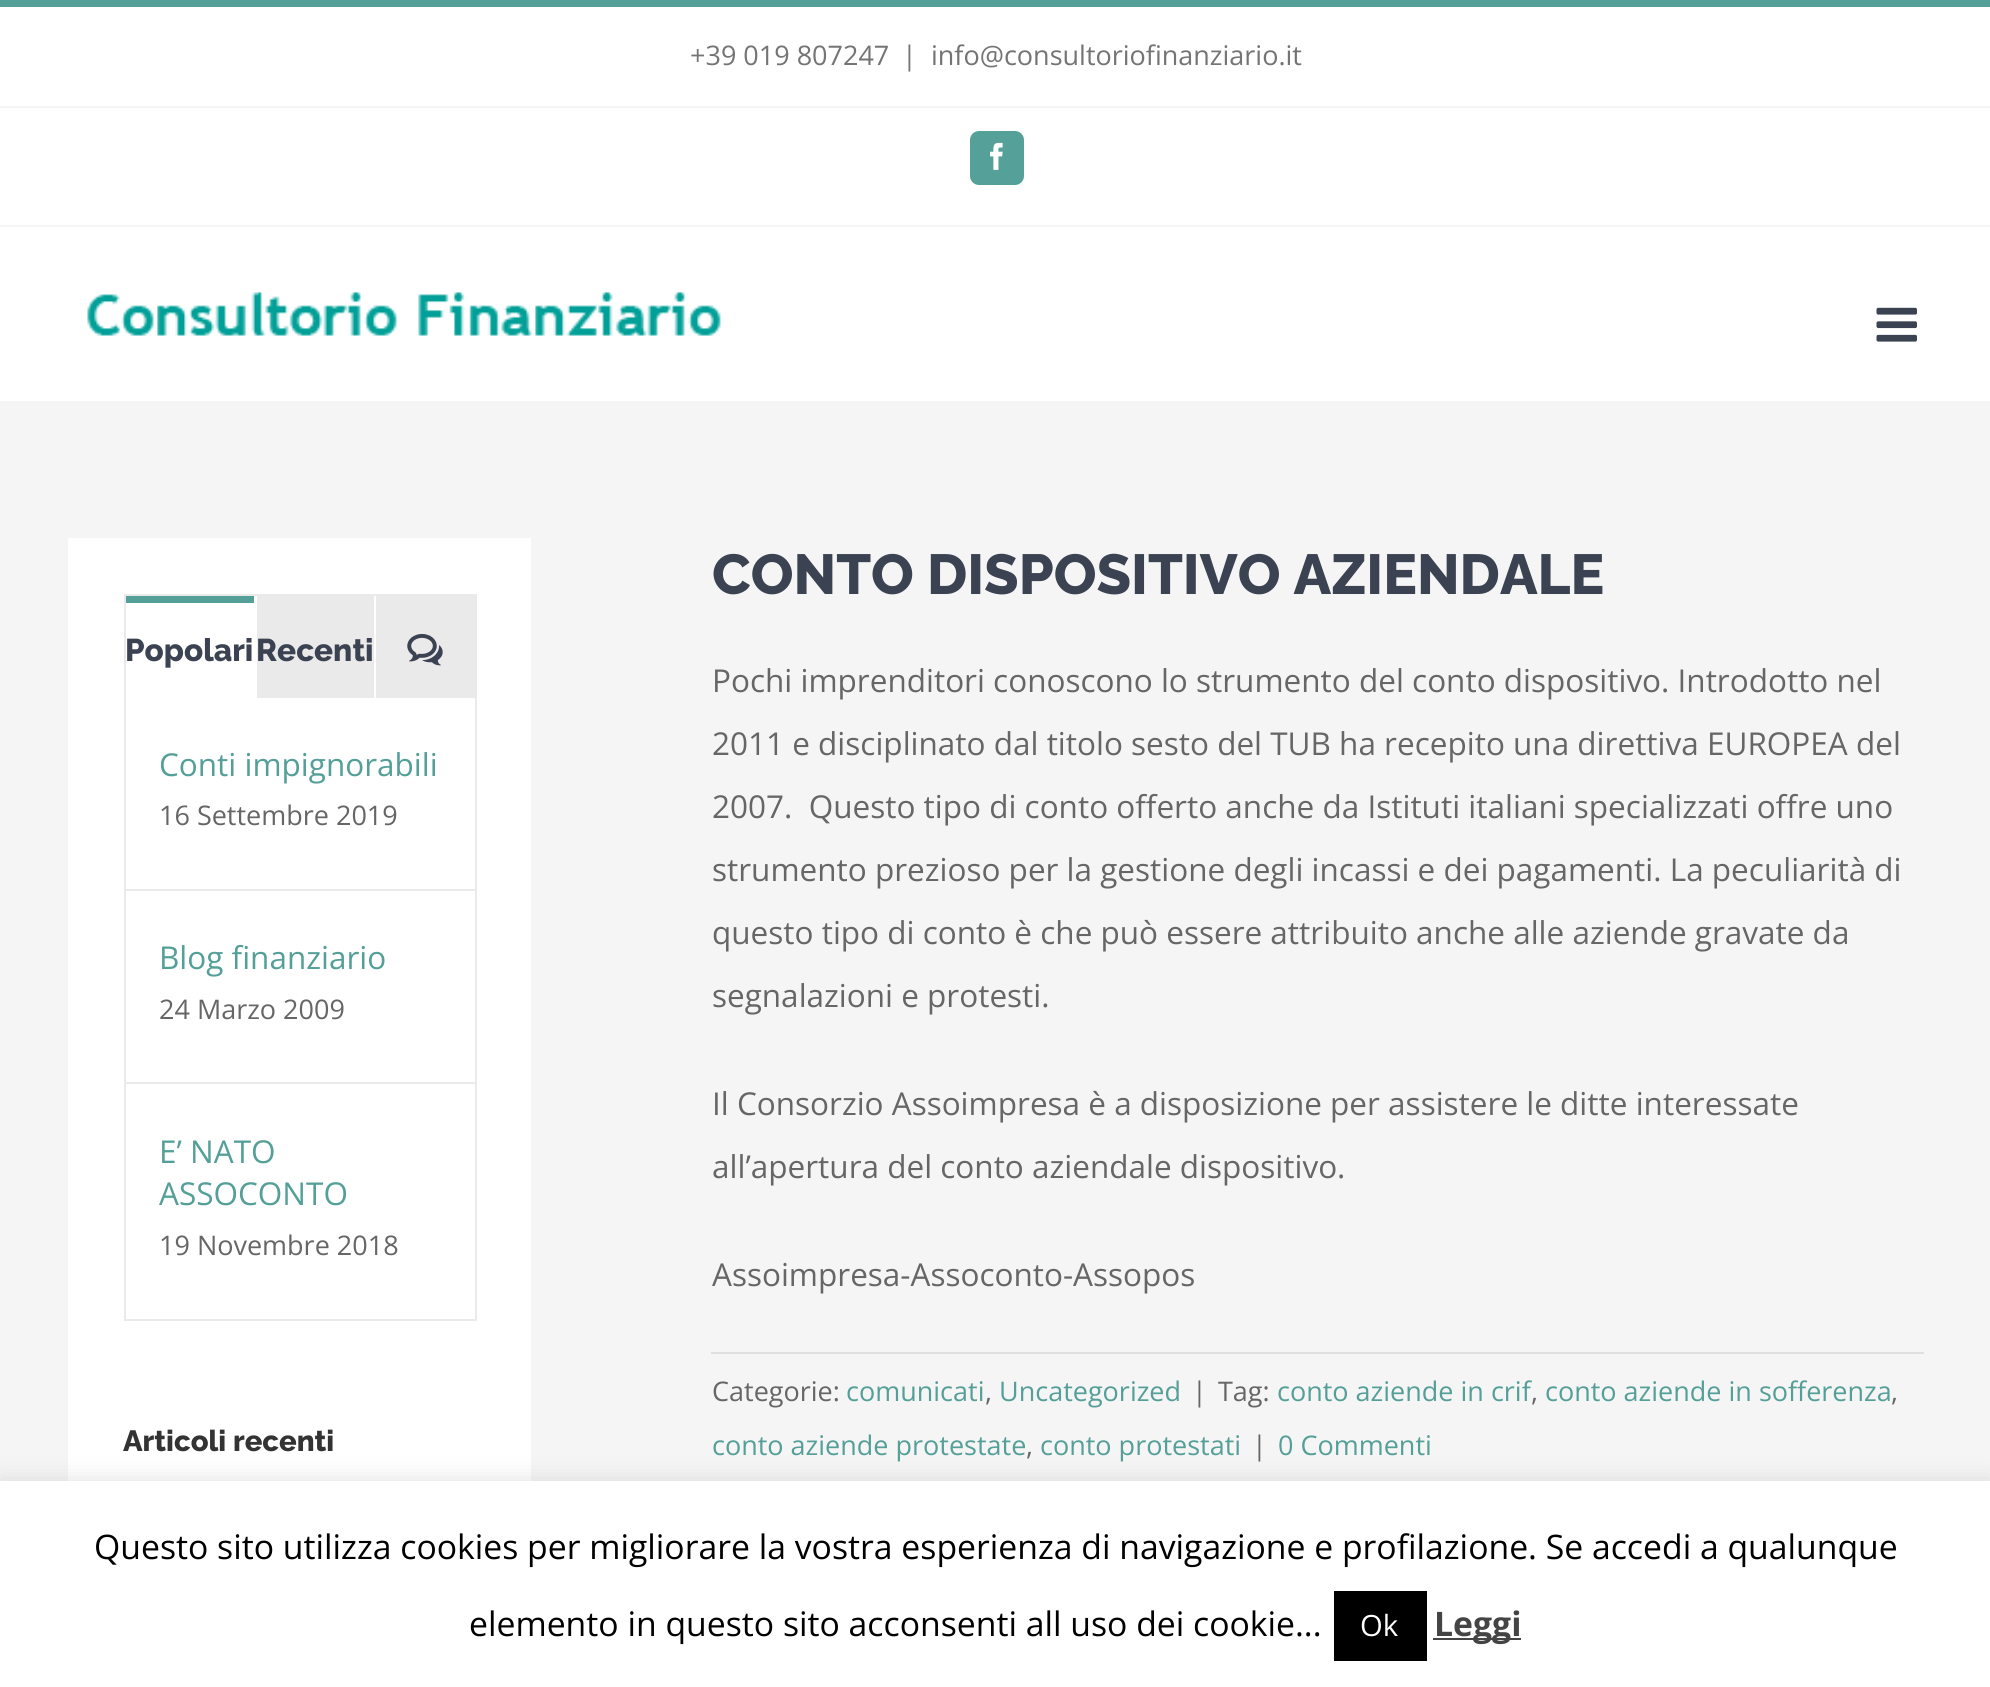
#include <cairo.h>
#include <math.h>
#include <stddef.h>

typedef struct { double x, y; const char *s; } line_t;
typedef struct { double x, y, w, h; unsigned color; } box_t;

static void ink(cairo_t *ctx, unsigned color) {
    cairo_set_source_rgb(ctx, (color >> 16) / 255.0, (color >> 8 & 255) / 255.0, (color & 255) / 255.0);
}

static void round_path(cairo_t *ctx, double x, double y, double w, double h, double r) {
    cairo_new_sub_path(ctx);
    cairo_arc(ctx, x + w - r, y + h - r, r, 0, M_PI / 2);
    cairo_arc(ctx, x + r, y + h - r, r, M_PI / 2, M_PI);
    cairo_arc(ctx, x + r, y + r, r, M_PI, 1.5 * M_PI);
    cairo_arc(ctx, x + w - r, y + r, r, 1.5 * M_PI, 2 * M_PI);
    cairo_close_path(ctx);
}

static void blur_box(cairo_t *ctx, double x, double y, double w, double h, double r, double blur, double alpha) {
    cairo_push_group_with_content(ctx, CAIRO_CONTENT_ALPHA);
    cairo_set_operator(ctx, CAIRO_OPERATOR_SOURCE);
    for (int i = 15; i >= -15 && fmin(w, h) + blur * i / 3 > 0; i -= 2) {
        double e = blur * i / 6;
        cairo_set_source_rgba(ctx, 0, 0, 0, alpha * erfc((i - 1) / 8.5) / 2);
        round_path(ctx, x - e, y - e, w + 2 * e, h + 2 * e, fmax(0, fmin(r + e + blur * .6, fmin(w, h) / 2 + e)));
        cairo_fill(ctx);
    }
    cairo_pattern_t *soft = cairo_pop_group(ctx);
    cairo_mask(ctx, soft);
    cairo_pattern_destroy(soft);
}

static void paste(cairo_t *ctx, const char *path, double x, double y, double w, double h) {
    cairo_surface_t *image = cairo_image_surface_create_from_png(path);
    cairo_save(ctx);
    cairo_set_source_surface(ctx, image, x, y);
    cairo_rectangle(ctx, x, y, w, h);
    cairo_fill(ctx);
    cairo_restore(ctx);
    cairo_surface_destroy(image);
}

int main(void) {
    cairo_surface_t *surface = cairo_image_surface_create(CAIRO_FORMAT_RGB24, 1990, 1687);
    cairo_t *ctx = cairo_create(surface);
    cairo_font_options_t *options = cairo_font_options_create();
    cairo_font_options_set_hint_metrics(options, CAIRO_HINT_METRICS_OFF);
    cairo_font_options_set_hint_style(options, CAIRO_HINT_STYLE_NONE);
    cairo_set_font_options(ctx, options);
    cairo_set_miter_limit(ctx, 4);
    ink(ctx, 0xF5F5F5);
    cairo_paint(ctx);
    {
        static const box_t items[] = {
            {0, 7, 1990, 218, 0xFFFFFF},
            {0, 0, 1990, 7, 0x549F97},
            {0, 106, 1990, 2, 0xF5F5F5},
        };
        for (size_t i = 0; i < sizeof items / sizeof *items; i++) {
            ink(ctx, items[i].color);
            cairo_rectangle(ctx, items[i].x, items[i].y, items[i].w, items[i].h);
            cairo_fill(ctx);
        }
    }
    cairo_select_font_face(ctx, "Open Sans", CAIRO_FONT_SLANT_NORMAL, CAIRO_FONT_WEIGHT_NORMAL);
    cairo_set_font_size(ctx, 27);
    ink(ctx, 0x747474);
    {
        static const line_t items[] = {
            {690, 65, "+39 019 807247"},
            {902, 65, "|"},
            {931, 65, "info@consultoriofinanziario.it"},
        };
        for (size_t i = 0; i < sizeof items / sizeof *items; i++) {
            cairo_move_to(ctx, items[i].x, items[i].y);
            cairo_show_text(ctx, items[i].s);
        }
    }
    ink(ctx, 0x55A098);
    round_path(ctx, 971, 132, 52, 52, 8);
    cairo_fill_preserve(ctx);
    cairo_stroke(ctx);
    paste(ctx, "media/1.png", 990, 142, 13, 28);
    ink(ctx, 0xFFFFFF);
    cairo_rectangle(ctx, 0, 227, 1990, 174);
    cairo_fill(ctx);
    paste(ctx, "media/2.png", 87, 292, 634, 44);
    paste(ctx, "media/3.png", 1876, 307, 41, 35);
    cairo_rectangle(ctx, 68, 538, 463, 943);
    cairo_fill(ctx);
    cairo_rectangle(ctx, 125, 595, 351, 725);
    ink(ctx, 0xEBEAEA);
    cairo_stroke(ctx);
    ink(ctx, 0x549F97);
    cairo_rectangle(ctx, 126, 596, 128, 7);
    cairo_fill(ctx);
    cairo_select_font_face(ctx, "Raleway Thin", CAIRO_FONT_SLANT_NORMAL, CAIRO_FONT_WEIGHT_NORMAL);
    cairo_set_font_size(ctx, 31.5);
    ink(ctx, 0x3B4251);
    cairo_move_to(ctx, 125, 661);
    cairo_show_text(ctx, "Popolari");
    ink(ctx, 0xEBEAEA);
    cairo_rectangle(ctx, 257, 596, 117, 102);
    cairo_fill(ctx);
    ink(ctx, 0x3B4251);
    cairo_move_to(ctx, 256, 661);
    cairo_show_text(ctx, "Recenti");
    ink(ctx, 0xEBEAEA);
    cairo_rectangle(ctx, 376, 596, 99, 102);
    cairo_fill(ctx);
    paste(ctx, "media/4.png", 407, 633, 36, 33);
    cairo_rectangle(ctx, 126, 889, 349, 2);
    cairo_fill(ctx);
    cairo_select_font_face(ctx, "Open Sans", CAIRO_FONT_SLANT_NORMAL, CAIRO_FONT_WEIGHT_NORMAL);
    ink(ctx, 0x549F97);
    cairo_move_to(ctx, 159, 776);
    cairo_show_text(ctx, "Conti impignorabili");
    cairo_set_font_size(ctx, 27);
    ink(ctx, 0x666666);
    cairo_move_to(ctx, 159, 825);
    cairo_show_text(ctx, "16 Settembre 2019");
    ink(ctx, 0xEBEAEA);
    cairo_rectangle(ctx, 126, 1082, 349, 2);
    cairo_fill(ctx);
    cairo_set_font_size(ctx, 31.5);
    ink(ctx, 0x549F97);
    cairo_move_to(ctx, 159, 969);
    cairo_show_text(ctx, "Blog finanziario");
    cairo_set_font_size(ctx, 27);
    ink(ctx, 0x666666);
    cairo_move_to(ctx, 159, 1019);
    cairo_show_text(ctx, "24 Marzo 2009");
    cairo_set_font_size(ctx, 31.5);
    ink(ctx, 0x549F97);
    cairo_move_to(ctx, 159, 1163);
    cairo_show_text(ctx, "E’ NATO");
    cairo_move_to(ctx, 159, 1205);
    cairo_show_text(ctx, "ASSOCONTO");
    cairo_set_font_size(ctx, 27);
    ink(ctx, 0x666666);
    cairo_move_to(ctx, 159, 1255);
    cairo_show_text(ctx, "19 Novembre 2018");
    cairo_select_font_face(ctx, "Raleway Thin", CAIRO_FONT_SLANT_NORMAL, CAIRO_FONT_WEIGHT_NORMAL);
    cairo_set_font_size(ctx, 29.25);
    ink(ctx, 0x333333);
    cairo_move_to(ctx, 123, 1451);
    cairo_show_text(ctx, "Articoli recenti");
    cairo_set_font_size(ctx, 56.25);
    ink(ctx, 0x3B4251);
    cairo_move_to(ctx, 712, 594);
    cairo_show_text(ctx, "CONTO DISPOSITIVO AZIENDALE");
    cairo_select_font_face(ctx, "Open Sans", CAIRO_FONT_SLANT_NORMAL, CAIRO_FONT_WEIGHT_NORMAL);
    cairo_set_font_size(ctx, 31.5);
    ink(ctx, 0x666666);
    {
        static const line_t items[] = {
            {712, 692, "Pochi imprenditori conoscono lo strumento del conto dispositivo. Introdotto nel"},
            {712, 755, "2011 e disciplinato dal titolo sesto del TUB ha recepito una direttiva EUROPEA del"},
            {712, 818, "2007.  Questo tipo di conto offerto anche da Istituti italiani specializzati offre uno"},
            {712, 881, "strumento prezioso per la gestione degli incassi e dei pagamenti. La peculiarità di"},
            {712, 944, "questo tipo di conto è che può essere attribuito anche alle aziende gravate da"},
            {712, 1007, "segnalazioni e protesti."},
            {712, 1115, "Il Consorzio Assoimpresa è a disposizione per assistere le ditte interessate"},
            {712, 1178, "all’apertura del conto aziendale dispositivo."},
            {712, 1286, "Assoimpresa-Assoconto-Assopos"},
        };
        for (size_t i = 0; i < sizeof items / sizeof *items; i++) {
            cairo_move_to(ctx, items[i].x, items[i].y);
            cairo_show_text(ctx, items[i].s);
        }
    }
    ink(ctx, 0xE0DEDE);
    cairo_rectangle(ctx, 711, 1352, 1213, 2);
    cairo_fill(ctx);
    cairo_set_font_size(ctx, 27);
    ink(ctx, 0x666666);
    cairo_move_to(ctx, 712, 1401);
    cairo_show_text(ctx, "Categorie:");
    ink(ctx, 0x549F97);
    cairo_move_to(ctx, 846, 1401);
    cairo_show_text(ctx, "comunicati");
    ink(ctx, 0x666666);
    cairo_move_to(ctx, 985, 1401);
    cairo_show_text(ctx, ",");
    ink(ctx, 0x549F97);
    cairo_move_to(ctx, 999, 1401);
    cairo_show_text(ctx, "Uncategorized");
    ink(ctx, 0x666666);
    cairo_move_to(ctx, 1192, 1401);
    cairo_show_text(ctx, "|");
    cairo_move_to(ctx, 1218, 1401);
    cairo_show_text(ctx, "Tag:");
    ink(ctx, 0x549F97);
    cairo_move_to(ctx, 1277, 1401);
    cairo_show_text(ctx, "conto aziende in crif");
    ink(ctx, 0x666666);
    cairo_move_to(ctx, 1531, 1401);
    cairo_show_text(ctx, ",");
    ink(ctx, 0x549F97);
    cairo_move_to(ctx, 1545, 1401);
    cairo_show_text(ctx, "conto aziende in sofferenza");
    ink(ctx, 0x666666);
    cairo_move_to(ctx, 1891, 1401);
    cairo_show_text(ctx, ",");
    ink(ctx, 0x549F97);
    cairo_move_to(ctx, 712, 1455);
    cairo_show_text(ctx, "conto aziende protestate");
    ink(ctx, 0x666666);
    cairo_move_to(ctx, 1026, 1455);
    cairo_show_text(ctx, ",");
    ink(ctx, 0x549F97);
    cairo_move_to(ctx, 1040, 1455);
    cairo_show_text(ctx, "conto protestati");
    ink(ctx, 0x666666);
    cairo_move_to(ctx, 1252, 1455);
    cairo_show_text(ctx, "|");
    ink(ctx, 0x549F97);
    cairo_move_to(ctx, 1278, 1455);
    cairo_show_text(ctx, "0 Commenti");
    ink(ctx, 0xACABAB);
    blur_box(ctx, 0, 1478, 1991, 207, 0, 11, 0.3);
    ink(ctx, 0xFFFFFF);
    cairo_rectangle(ctx, 0, 1481, 1990, 206);
    cairo_fill(ctx);
    cairo_set_font_size(ctx, 33.75);
    ink(ctx, 0x000000);
    cairo_move_to(ctx, 94, 1559);
    cairo_show_text(ctx, "Questo sito utilizza cookies per migliorare la vostra esperienza di navigazione e profilazione. Se accedi a qualunque");
    cairo_move_to(ctx, 469, 1636);
    cairo_show_text(ctx, "elemento in questo sito acconsenti all uso dei cookie...");
    cairo_rectangle(ctx, 1334, 1591, 93, 70);
    cairo_fill(ctx);
    cairo_set_font_size(ctx, 29.25);
    ink(ctx, 0xFFFFFF);
    cairo_move_to(ctx, 1360, 1636);
    cairo_show_text(ctx, "Ok");
    ink(ctx, 0x444444);
    cairo_rectangle(ctx, 1433, 1638, 88, 2);
    cairo_fill(ctx);
    cairo_select_font_face(ctx, "Open Sans", CAIRO_FONT_SLANT_NORMAL, CAIRO_FONT_WEIGHT_BOLD);
    cairo_set_font_size(ctx, 33.75);
    cairo_move_to(ctx, 1434, 1636);
    cairo_show_text(ctx, "Leggi");
    cairo_surface_write_to_png(surface, "image.png");
    cairo_font_options_destroy(options);
    cairo_destroy(ctx);
    cairo_surface_destroy(surface);
    return 0;
}
